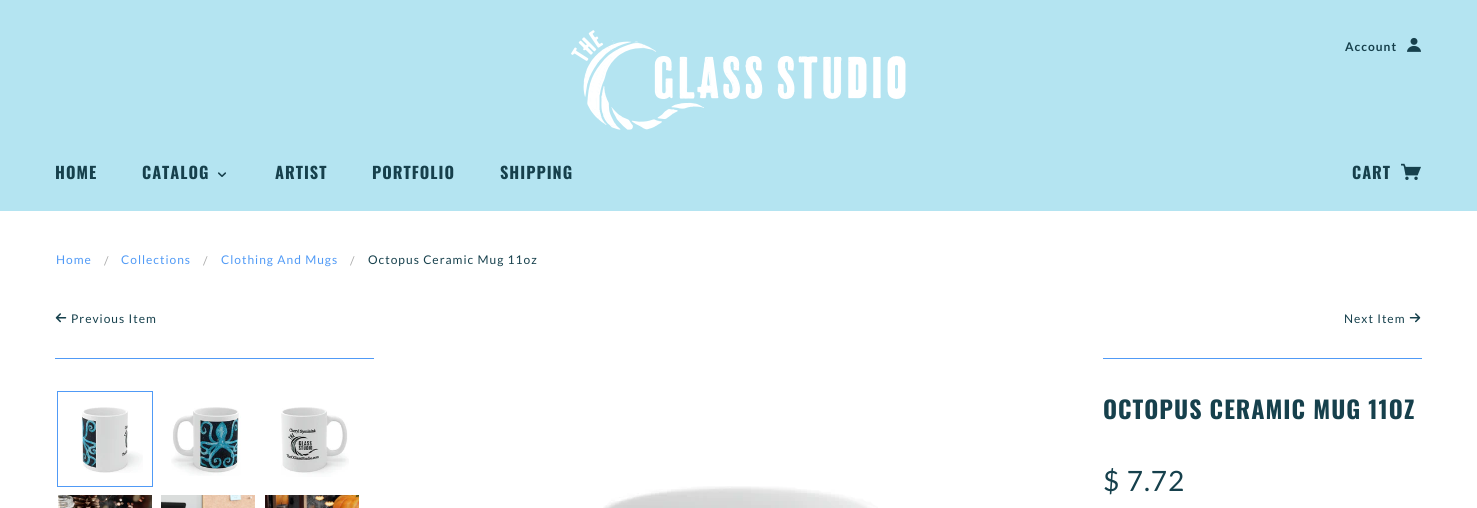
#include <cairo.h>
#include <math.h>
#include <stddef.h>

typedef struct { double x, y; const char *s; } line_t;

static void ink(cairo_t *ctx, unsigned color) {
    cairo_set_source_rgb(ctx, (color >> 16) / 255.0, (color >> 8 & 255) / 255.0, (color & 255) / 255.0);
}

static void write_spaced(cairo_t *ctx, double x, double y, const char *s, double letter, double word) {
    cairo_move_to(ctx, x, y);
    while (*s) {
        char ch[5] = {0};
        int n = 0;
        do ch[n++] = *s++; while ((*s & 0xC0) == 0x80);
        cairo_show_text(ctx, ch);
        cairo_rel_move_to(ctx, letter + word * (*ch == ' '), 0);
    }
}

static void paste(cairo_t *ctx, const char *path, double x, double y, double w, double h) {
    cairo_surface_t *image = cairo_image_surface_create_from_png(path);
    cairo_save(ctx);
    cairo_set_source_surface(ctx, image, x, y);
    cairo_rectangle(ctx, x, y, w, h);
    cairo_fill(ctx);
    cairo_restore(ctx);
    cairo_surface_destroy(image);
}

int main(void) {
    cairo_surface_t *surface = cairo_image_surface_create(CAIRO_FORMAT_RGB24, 1477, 508);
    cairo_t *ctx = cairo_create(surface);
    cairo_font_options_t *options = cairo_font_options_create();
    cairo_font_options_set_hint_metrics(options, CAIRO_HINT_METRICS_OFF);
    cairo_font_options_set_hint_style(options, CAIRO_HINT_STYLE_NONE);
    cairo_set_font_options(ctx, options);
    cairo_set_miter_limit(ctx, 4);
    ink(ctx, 0xFFFFFF);
    cairo_paint(ctx);
    ink(ctx, 0xB4E4F1);
    cairo_rectangle(ctx, 0, 0, 1477, 211);
    cairo_fill(ctx);
    paste(ctx, "media/1.png", 571, 30, 335, 100);
    cairo_select_font_face(ctx, "Lato", CAIRO_FONT_SLANT_NORMAL, CAIRO_FONT_WEIGHT_BOLD);
    cairo_set_font_size(ctx, 12);
    ink(ctx, 0x16404C);
    write_spaced(ctx, 1345, 51, "Account", 1, 0);
    paste(ctx, "media/2.png", 1407, 37, 14, 15);
    cairo_select_font_face(ctx, "Oswald", CAIRO_FONT_SLANT_NORMAL, CAIRO_FONT_WEIGHT_BOLD);
    cairo_set_font_size(ctx, 16.25);
    write_spaced(ctx, 55, 179, "HOME", 1, 0);
    write_spaced(ctx, 142, 179, "CATALOG", 1, 0);
    paste(ctx, "media/3.png", 218, 172, 8, 5);
    {
        static const line_t items[] = {
            {275, 179, "ARTIST"},
            {372, 179, "PORTFOLIO"},
            {500, 179, "SHIPPING"},
            {1352, 179, "CART"},
        };
        for (size_t i = 0; i < sizeof items / sizeof *items; i++) {
            write_spaced(ctx, items[i].x, items[i].y, items[i].s, 1, 0);
        }
    }
    paste(ctx, "media/4.png", 1401, 163, 20, 17);
    cairo_select_font_face(ctx, "Lato", CAIRO_FONT_SLANT_NORMAL, CAIRO_FONT_WEIGHT_NORMAL);
    cairo_set_font_size(ctx, 12);
    ink(ctx, 0x509AF6);
    write_spaced(ctx, 56, 264, "Home", 1, 0);
    ink(ctx, 0xAAAAAA);
    write_spaced(ctx, 104, 265, "/", 1, 0);
    ink(ctx, 0x509AF6);
    write_spaced(ctx, 121, 264, "Collections", 1, 0);
    ink(ctx, 0xAAAAAA);
    write_spaced(ctx, 203, 265, "/", 1, 0);
    ink(ctx, 0x509AF6);
    write_spaced(ctx, 221, 264, "Clothing And Mugs", 1, 0);
    ink(ctx, 0xAAAAAA);
    write_spaced(ctx, 350, 265, "/", 1, 0);
    ink(ctx, 0x16404C);
    write_spaced(ctx, 368, 264, "Octopus Ceramic Mug 11oz", 1, 0);
    paste(ctx, "media/5.png", 55, 313, 12, 10);
    write_spaced(ctx, 71, 323, "Previous Item", 1, 0);
    ink(ctx, 0x509AF6);
    cairo_rectangle(ctx, 55, 358, 319, 1);
    cairo_fill(ctx);
    ink(ctx, 0x16404C);
    write_spaced(ctx, 1344, 323, "Next Item", 1, 0);
    paste(ctx, "media/6.png", 1409, 313, 12, 10);
    ink(ctx, 0x509AF6);
    cairo_rectangle(ctx, 1103, 358, 319, 1);
    cairo_fill(ctx);
    paste(ctx, "media/7.png", 81, 407, 62, 66);
    cairo_rectangle(ctx, 57.5, 391.5, 95, 95);
    cairo_set_line_width(ctx, 1);
    cairo_stroke(ctx);
    paste(ctx, "media/8.png", 171, 407, 70, 69);
    paste(ctx, "media/9.png", 281, 407, 68, 70);
    paste(ctx, "media/10.png", 58, 495, 94, 13);
    paste(ctx, "media/11.png", 161, 495, 94, 13);
    paste(ctx, "media/12.png", 265, 495, 94, 13);
    paste(ctx, "media/13.png", 603, 486, 275, 22);
    cairo_select_font_face(ctx, "Oswald", CAIRO_FONT_SLANT_NORMAL, CAIRO_FONT_WEIGHT_BOLD);
    cairo_set_font_size(ctx, 24);
    ink(ctx, 0x16404C);
    write_spaced(ctx, 1103, 419, "OCTOPUS CERAMIC MUG 11OZ", 1, 0);
    cairo_select_font_face(ctx, "Lato", CAIRO_FONT_SLANT_NORMAL, CAIRO_FONT_WEIGHT_NORMAL);
    cairo_set_font_size(ctx, 28);
    write_spaced(ctx, 1103, 491, "$ 7.72", 1, 0);
    cairo_surface_write_to_png(surface, "image.png");
    cairo_font_options_destroy(options);
    cairo_destroy(ctx);
    cairo_surface_destroy(surface);
    return 0;
}
